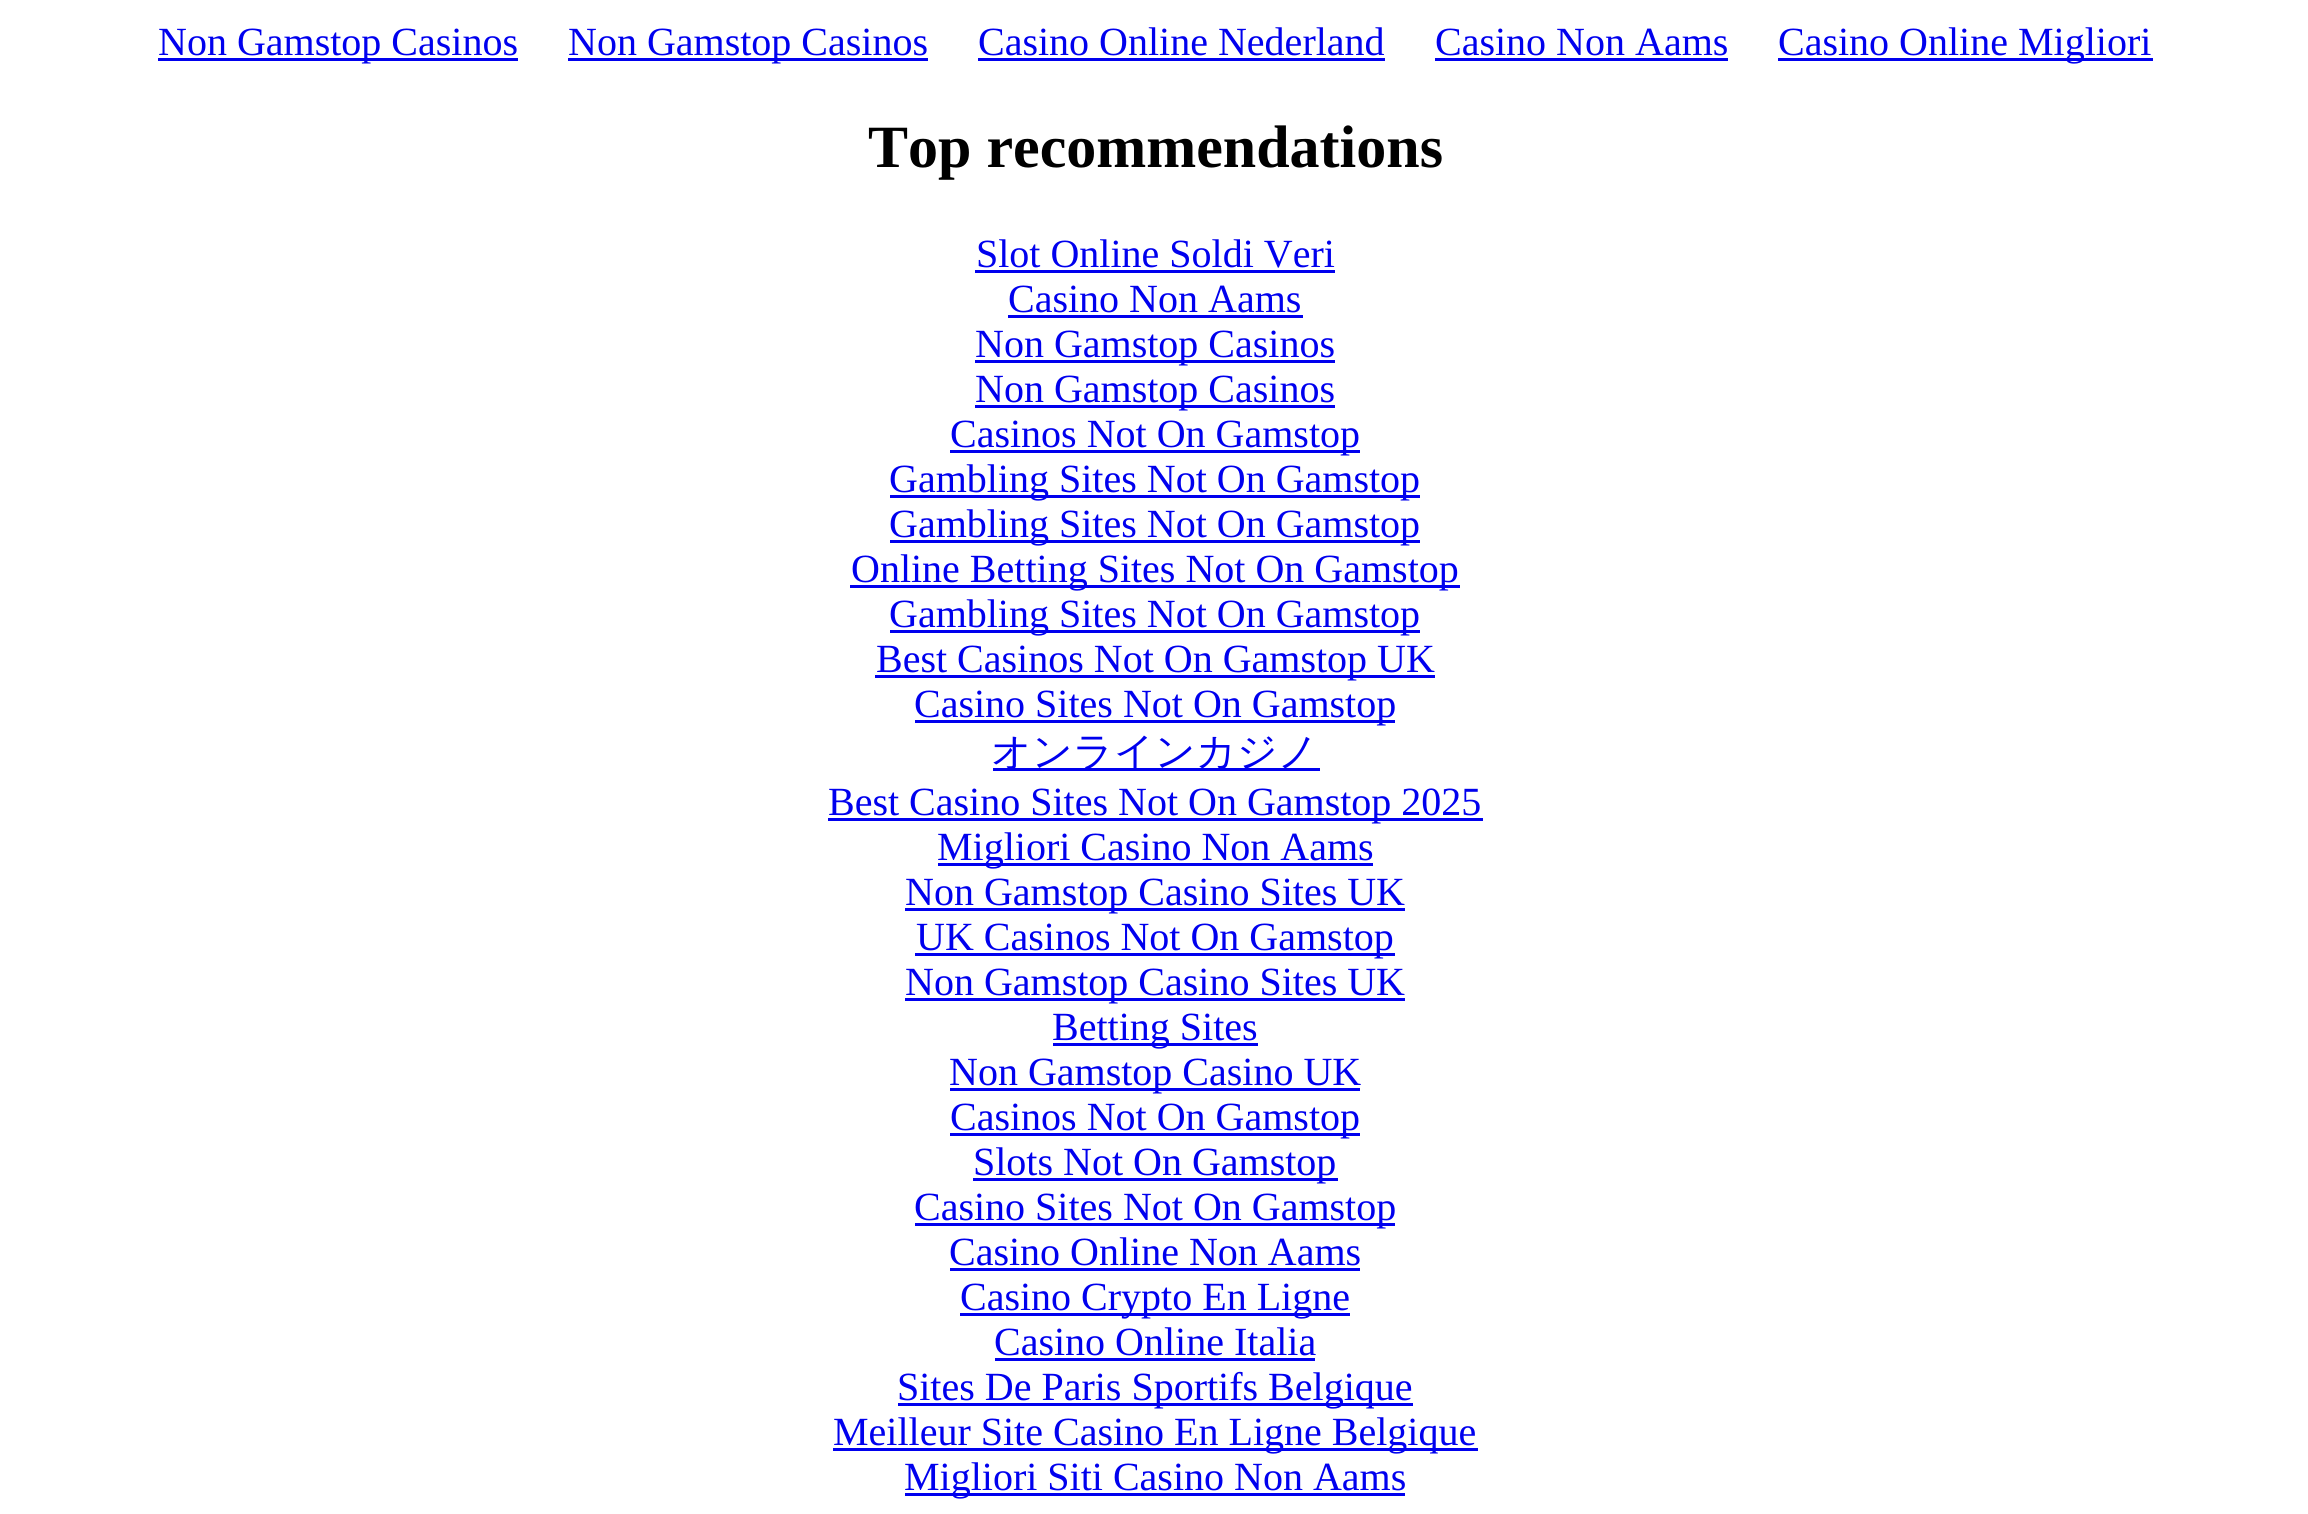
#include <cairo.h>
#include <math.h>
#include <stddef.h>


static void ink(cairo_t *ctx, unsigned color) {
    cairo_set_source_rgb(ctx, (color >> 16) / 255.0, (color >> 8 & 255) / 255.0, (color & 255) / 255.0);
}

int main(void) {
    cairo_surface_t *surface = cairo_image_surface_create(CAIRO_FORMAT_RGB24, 2308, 1514);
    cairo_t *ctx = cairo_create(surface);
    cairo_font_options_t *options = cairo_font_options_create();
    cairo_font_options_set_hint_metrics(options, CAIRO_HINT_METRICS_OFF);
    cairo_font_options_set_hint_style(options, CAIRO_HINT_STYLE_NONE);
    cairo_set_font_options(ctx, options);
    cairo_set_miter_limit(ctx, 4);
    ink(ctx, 0xFFFFFF);
    cairo_paint(ctx);
    ink(ctx, 0x0000EE);
    cairo_rectangle(ctx, 158, 58, 360, 3);
    cairo_fill(ctx);
    cairo_select_font_face(ctx, "Liberation Serif", CAIRO_FONT_SLANT_NORMAL, CAIRO_FONT_WEIGHT_NORMAL);
    cairo_set_font_size(ctx, 40);
    cairo_move_to(ctx, 158, 55);
    cairo_show_text(ctx, "Non Gamstop Casinos");
    cairo_rectangle(ctx, 568, 58, 360, 3);
    cairo_fill(ctx);
    cairo_move_to(ctx, 568, 55);
    cairo_show_text(ctx, "Non Gamstop Casinos");
    cairo_move_to(ctx, 978, 55);
    cairo_show_text(ctx, "Casino Online Nederland");
    cairo_rectangle(ctx, 978, 58, 407, 3);
    cairo_fill(ctx);
    cairo_move_to(ctx, 1435, 55);
    cairo_show_text(ctx, "Casino Non Aams");
    cairo_rectangle(ctx, 1435, 58, 293, 3);
    cairo_fill(ctx);
    cairo_rectangle(ctx, 1778, 58, 375, 3);
    cairo_fill(ctx);
    cairo_move_to(ctx, 1778, 55);
    cairo_show_text(ctx, "Casino Online Migliori");
    cairo_select_font_face(ctx, "Liberation Serif", CAIRO_FONT_SLANT_NORMAL, CAIRO_FONT_WEIGHT_BOLD);
    cairo_set_font_size(ctx, 60);
    ink(ctx, 0x000000);
    cairo_move_to(ctx, 868, 167);
    cairo_show_text(ctx, "Top recommendations");
    cairo_select_font_face(ctx, "Liberation Serif", CAIRO_FONT_SLANT_NORMAL, CAIRO_FONT_WEIGHT_NORMAL);
    cairo_set_font_size(ctx, 40);
    ink(ctx, 0x0000EE);
    cairo_move_to(ctx, 976, 267);
    cairo_show_text(ctx, "Slot Online Soldi Veri");
    cairo_rectangle(ctx, 975, 270, 360, 3);
    cairo_fill(ctx);
    cairo_move_to(ctx, 1008, 312);
    cairo_show_text(ctx, "Casino Non Aams");
    cairo_rectangle(ctx, 1008, 315, 295, 3);
    cairo_fill(ctx);
    cairo_rectangle(ctx, 975, 360, 360, 3);
    cairo_fill(ctx);
    cairo_move_to(ctx, 975, 357);
    cairo_show_text(ctx, "Non Gamstop Casinos");
    cairo_rectangle(ctx, 975, 405, 360, 3);
    cairo_fill(ctx);
    cairo_move_to(ctx, 975, 402);
    cairo_show_text(ctx, "Non Gamstop Casinos");
    cairo_rectangle(ctx, 950, 450, 410, 3);
    cairo_fill(ctx);
    cairo_move_to(ctx, 950, 447);
    cairo_show_text(ctx, "Casinos Not On Gamstop");
    cairo_rectangle(ctx, 890, 495, 530, 3);
    cairo_fill(ctx);
    cairo_move_to(ctx, 889, 492);
    cairo_show_text(ctx, "Gambling Sites Not On Gamstop");
    cairo_rectangle(ctx, 890, 540, 530, 3);
    cairo_fill(ctx);
    cairo_move_to(ctx, 889, 537);
    cairo_show_text(ctx, "Gambling Sites Not On Gamstop");
    cairo_rectangle(ctx, 850, 585, 610, 3);
    cairo_fill(ctx);
    cairo_move_to(ctx, 851, 582);
    cairo_show_text(ctx, "Online Betting Sites Not On Gamstop");
    cairo_rectangle(ctx, 890, 630, 530, 3);
    cairo_fill(ctx);
    cairo_move_to(ctx, 889, 627);
    cairo_show_text(ctx, "Gambling Sites Not On Gamstop");
    cairo_rectangle(ctx, 875, 675, 560, 3);
    cairo_fill(ctx);
    cairo_move_to(ctx, 876, 672);
    cairo_show_text(ctx, "Best Casinos Not On Gamstop UK");
    cairo_rectangle(ctx, 915, 720, 480, 3);
    cairo_fill(ctx);
    cairo_move_to(ctx, 914, 717);
    cairo_show_text(ctx, "Casino Sites Not On Gamstop");
    cairo_rectangle(ctx, 993, 768, 327, 3);
    cairo_fill(ctx);
    cairo_select_font_face(ctx, "WenQuanYi Zen Hei Medium", CAIRO_FONT_SLANT_NORMAL, CAIRO_FONT_WEIGHT_NORMAL);
    cairo_move_to(ctx, 991, 765);
    cairo_show_text(ctx, "オンラインカジノ");
    cairo_rectangle(ctx, 828, 818, 655, 3);
    cairo_fill(ctx);
    cairo_select_font_face(ctx, "Liberation Serif", CAIRO_FONT_SLANT_NORMAL, CAIRO_FONT_WEIGHT_NORMAL);
    cairo_move_to(ctx, 828, 815);
    cairo_show_text(ctx, "Best Casino Sites Not On Gamstop 2025");
    cairo_rectangle(ctx, 938, 863, 435, 3);
    cairo_fill(ctx);
    cairo_move_to(ctx, 937, 860);
    cairo_show_text(ctx, "Migliori Casino Non Aams");
    cairo_rectangle(ctx, 905, 908, 500, 3);
    cairo_fill(ctx);
    cairo_move_to(ctx, 905, 905);
    cairo_show_text(ctx, "Non Gamstop Casino Sites UK");
    cairo_rectangle(ctx, 915, 953, 480, 3);
    cairo_fill(ctx);
    cairo_move_to(ctx, 916, 950);
    cairo_show_text(ctx, "UK Casinos Not On Gamstop");
    cairo_rectangle(ctx, 905, 998, 500, 3);
    cairo_fill(ctx);
    cairo_move_to(ctx, 905, 995);
    cairo_show_text(ctx, "Non Gamstop Casino Sites UK");
    cairo_rectangle(ctx, 1053, 1043, 205, 3);
    cairo_fill(ctx);
    cairo_move_to(ctx, 1052, 1040);
    cairo_show_text(ctx, "Betting Sites");
    cairo_rectangle(ctx, 950, 1088, 410, 3);
    cairo_fill(ctx);
    cairo_move_to(ctx, 949, 1085);
    cairo_show_text(ctx, "Non Gamstop Casino UK");
    cairo_rectangle(ctx, 950, 1133, 410, 3);
    cairo_fill(ctx);
    cairo_move_to(ctx, 950, 1130);
    cairo_show_text(ctx, "Casinos Not On Gamstop");
    cairo_rectangle(ctx, 973, 1178, 365, 3);
    cairo_fill(ctx);
    cairo_move_to(ctx, 973, 1175);
    cairo_show_text(ctx, "Slots Not On Gamstop");
    cairo_rectangle(ctx, 915, 1223, 480, 3);
    cairo_fill(ctx);
    cairo_move_to(ctx, 914, 1220);
    cairo_show_text(ctx, "Casino Sites Not On Gamstop");
    cairo_move_to(ctx, 949, 1265);
    cairo_show_text(ctx, "Casino Online Non Aams");
    cairo_rectangle(ctx, 950, 1268, 410, 3);
    cairo_fill(ctx);
    cairo_rectangle(ctx, 960, 1313, 390, 3);
    cairo_fill(ctx);
    cairo_move_to(ctx, 960, 1310);
    cairo_show_text(ctx, "Casino Crypto En Ligne");
    cairo_move_to(ctx, 994, 1355);
    cairo_show_text(ctx, "Casino Online Italia");
    cairo_rectangle(ctx, 995, 1358, 320, 3);
    cairo_fill(ctx);
    cairo_rectangle(ctx, 898, 1403, 515, 3);
    cairo_fill(ctx);
    cairo_move_to(ctx, 897, 1400);
    cairo_show_text(ctx, "Sites De Paris Sportifs Belgique");
    cairo_rectangle(ctx, 833, 1448, 645, 3);
    cairo_fill(ctx);
    cairo_move_to(ctx, 833, 1445);
    cairo_show_text(ctx, "Meilleur Site Casino En Ligne Belgique");
    cairo_rectangle(ctx, 905, 1493, 500, 3);
    cairo_fill(ctx);
    cairo_move_to(ctx, 904, 1490);
    cairo_show_text(ctx, "Migliori Siti Casino Non Aams");
    cairo_surface_write_to_png(surface, "image.png");
    cairo_font_options_destroy(options);
    cairo_destroy(ctx);
    cairo_surface_destroy(surface);
    return 0;
}
